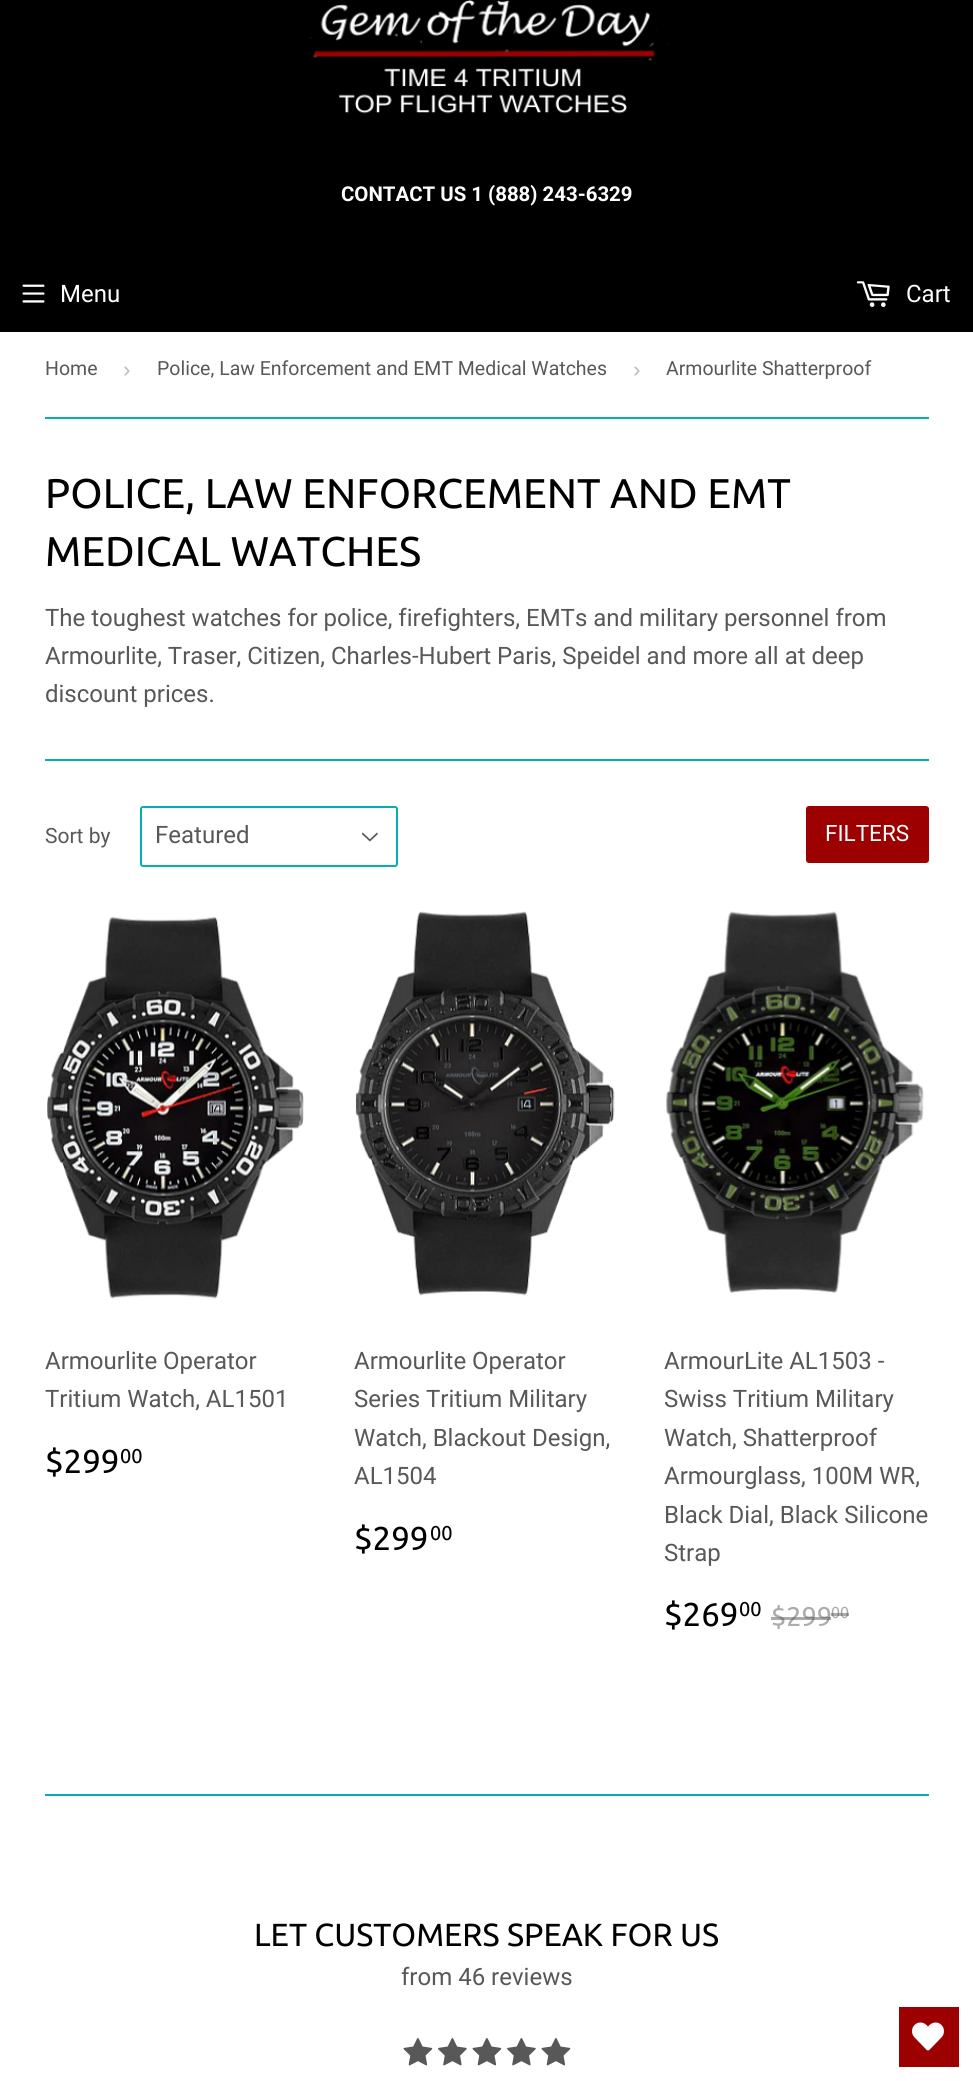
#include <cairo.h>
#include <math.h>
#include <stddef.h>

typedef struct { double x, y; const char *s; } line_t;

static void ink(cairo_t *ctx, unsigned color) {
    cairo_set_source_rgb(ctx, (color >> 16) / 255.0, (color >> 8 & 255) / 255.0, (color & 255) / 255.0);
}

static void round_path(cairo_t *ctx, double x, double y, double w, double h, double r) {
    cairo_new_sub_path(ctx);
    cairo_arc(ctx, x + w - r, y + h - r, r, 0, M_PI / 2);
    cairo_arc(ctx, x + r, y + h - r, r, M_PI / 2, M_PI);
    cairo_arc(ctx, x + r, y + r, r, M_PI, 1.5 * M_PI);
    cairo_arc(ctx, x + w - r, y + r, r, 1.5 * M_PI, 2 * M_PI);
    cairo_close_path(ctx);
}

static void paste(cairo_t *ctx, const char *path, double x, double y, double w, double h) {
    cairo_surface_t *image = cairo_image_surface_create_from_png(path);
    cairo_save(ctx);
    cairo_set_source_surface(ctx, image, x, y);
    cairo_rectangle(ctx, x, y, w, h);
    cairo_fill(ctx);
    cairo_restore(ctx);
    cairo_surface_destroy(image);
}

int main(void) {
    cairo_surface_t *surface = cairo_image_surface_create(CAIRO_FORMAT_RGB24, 973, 2081);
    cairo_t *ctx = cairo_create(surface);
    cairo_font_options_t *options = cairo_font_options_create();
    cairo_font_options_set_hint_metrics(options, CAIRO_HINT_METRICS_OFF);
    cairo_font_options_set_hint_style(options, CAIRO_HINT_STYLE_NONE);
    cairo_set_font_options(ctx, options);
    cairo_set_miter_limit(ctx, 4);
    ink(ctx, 0xFFFFFF);
    cairo_paint(ctx);
    ink(ctx, 0x000000);
    cairo_rectangle(ctx, 0, 0, 973, 332);
    cairo_fill(ctx);
    paste(ctx, "media/1.png", 309, 0, 359, 114);
    cairo_select_font_face(ctx, "Roboto", CAIRO_FONT_SLANT_NORMAL, CAIRO_FONT_WEIGHT_BOLD);
    cairo_set_font_size(ctx, 20.4);
    ink(ctx, 0xFFFFFF);
    cairo_move_to(ctx, 341, 201);
    cairo_show_text(ctx, "CONTACT US 1 (888) 243-6329");
    paste(ctx, "media/2.png", 22, 284, 23, 19);
    cairo_select_font_face(ctx, "Roboto", CAIRO_FONT_SLANT_NORMAL, CAIRO_FONT_WEIGHT_NORMAL);
    cairo_set_font_size(ctx, 24);
    cairo_move_to(ctx, 60, 302);
    cairo_show_text(ctx, "Menu");
    paste(ctx, "media/3.png", 856, 281, 34, 26);
    cairo_move_to(ctx, 906, 302);
    cairo_show_text(ctx, "Cart");
    ink(ctx, 0x06AEAE);
    cairo_rectangle(ctx, 45, 417, 884, 2);
    cairo_fill(ctx);
    cairo_set_font_size(ctx, 19.5);
    ink(ctx, 0x585858);
    cairo_move_to(ctx, 45, 375);
    cairo_show_text(ctx, "Home");
    cairo_select_font_face(ctx, "Liberation Sans", CAIRO_FONT_SLANT_NORMAL, CAIRO_FONT_WEIGHT_NORMAL);
    cairo_set_font_size(ctx, 22.5);
    ink(ctx, 0xBBBBBB);
    cairo_move_to(ctx, 123, 377);
    cairo_show_text(ctx, "›");
    cairo_select_font_face(ctx, "Roboto", CAIRO_FONT_SLANT_NORMAL, CAIRO_FONT_WEIGHT_NORMAL);
    cairo_set_font_size(ctx, 19.5);
    ink(ctx, 0x585858);
    cairo_move_to(ctx, 157, 375);
    cairo_show_text(ctx, "Police, Law Enforcement and EMT Medical Watches");
    cairo_select_font_face(ctx, "Liberation Sans", CAIRO_FONT_SLANT_NORMAL, CAIRO_FONT_WEIGHT_NORMAL);
    cairo_set_font_size(ctx, 22.5);
    ink(ctx, 0xBBBBBB);
    cairo_move_to(ctx, 633, 377);
    cairo_show_text(ctx, "›");
    cairo_select_font_face(ctx, "Roboto", CAIRO_FONT_SLANT_NORMAL, CAIRO_FONT_WEIGHT_NORMAL);
    cairo_set_font_size(ctx, 19.5);
    ink(ctx, 0x585858);
    cairo_move_to(ctx, 666, 375);
    cairo_show_text(ctx, "Armourlite Shatterproof");
    cairo_select_font_face(ctx, "Ubuntu", CAIRO_FONT_SLANT_NORMAL, CAIRO_FONT_WEIGHT_NORMAL);
    cairo_set_font_size(ctx, 41.6);
    ink(ctx, 0x000000);
    cairo_move_to(ctx, 45, 508);
    cairo_show_text(ctx, "POLICE, LAW ENFORCEMENT AND EMT");
    cairo_move_to(ctx, 45, 566);
    cairo_show_text(ctx, "MEDICAL WATCHES");
    cairo_select_font_face(ctx, "Roboto", CAIRO_FONT_SLANT_NORMAL, CAIRO_FONT_WEIGHT_NORMAL);
    cairo_set_font_size(ctx, 24);
    ink(ctx, 0x585858);
    {
        static const line_t items[] = {
            {45, 626, "The toughest watches for police, firefighters, EMTs and military personnel from"},
            {45, 664, "Armourlite, Traser, Citizen, Charles-Hubert Paris, Speidel and more all at deep"},
            {45, 702, "discount prices."},
        };
        for (size_t i = 0; i < sizeof items / sizeof *items; i++) {
            cairo_move_to(ctx, items[i].x, items[i].y);
            cairo_show_text(ctx, items[i].s);
        }
    }
    ink(ctx, 0x06AEAE);
    cairo_rectangle(ctx, 45, 759, 884, 2);
    cairo_fill(ctx);
    cairo_set_font_size(ctx, 21);
    ink(ctx, 0x585858);
    cairo_move_to(ctx, 45, 843);
    cairo_show_text(ctx, "Sort by");
    paste(ctx, "media/4.png", 362, 832, 16, 10);
    round_path(ctx, 141, 807, 256, 59, 2);
    ink(ctx, 0x06AEAE);
    cairo_stroke(ctx);
    cairo_set_font_size(ctx, 24);
    ink(ctx, 0x585858);
    cairo_move_to(ctx, 155, 843);
    cairo_show_text(ctx, "Featured");
    ink(ctx, 0x9C0000);
    round_path(ctx, 806, 806, 123, 57, 3);
    cairo_fill(ctx);
    cairo_set_font_size(ctx, 22.5);
    ink(ctx, 0xFFFFFF);
    cairo_move_to(ctx, 825, 841);
    cairo_show_text(ctx, "FILTERS");
    paste(ctx, "media/5.png", 47, 916, 257, 383);
    cairo_set_font_size(ctx, 24);
    ink(ctx, 0x585858);
    cairo_move_to(ctx, 45, 1369);
    cairo_show_text(ctx, "Armourlite Operator");
    cairo_move_to(ctx, 45, 1407);
    cairo_show_text(ctx, "Tritium Watch, AL1501");
    cairo_select_font_face(ctx, "Ubuntu", CAIRO_FONT_SLANT_NORMAL, CAIRO_FONT_WEIGHT_NORMAL);
    cairo_set_font_size(ctx, 33);
    ink(ctx, 0x000000);
    cairo_move_to(ctx, 45, 1473);
    cairo_show_text(ctx, "$299");
    cairo_set_font_size(ctx, 20);
    cairo_move_to(ctx, 120, 1463);
    cairo_show_text(ctx, "00");
    paste(ctx, "media/6.png", 355, 911, 260, 385);
    cairo_select_font_face(ctx, "Roboto", CAIRO_FONT_SLANT_NORMAL, CAIRO_FONT_WEIGHT_NORMAL);
    cairo_set_font_size(ctx, 24);
    ink(ctx, 0x585858);
    {
        static const line_t items[] = {
            {354, 1369, "Armourlite Operator"},
            {354, 1407, "Series Tritium Military"},
            {354, 1446, "Watch, Blackout Design,"},
            {354, 1484, "AL1504"},
        };
        for (size_t i = 0; i < sizeof items / sizeof *items; i++) {
            cairo_move_to(ctx, items[i].x, items[i].y);
            cairo_show_text(ctx, items[i].s);
        }
    }
    cairo_select_font_face(ctx, "Ubuntu", CAIRO_FONT_SLANT_NORMAL, CAIRO_FONT_WEIGHT_NORMAL);
    cairo_set_font_size(ctx, 33);
    ink(ctx, 0x000000);
    cairo_move_to(ctx, 354, 1550);
    cairo_show_text(ctx, "$299");
    cairo_set_font_size(ctx, 20);
    cairo_move_to(ctx, 430, 1540);
    cairo_show_text(ctx, "00");
    paste(ctx, "media/7.png", 666, 911, 258, 382);
    cairo_select_font_face(ctx, "Roboto", CAIRO_FONT_SLANT_NORMAL, CAIRO_FONT_WEIGHT_NORMAL);
    cairo_set_font_size(ctx, 24);
    ink(ctx, 0x585858);
    {
        static const line_t items[] = {
            {664, 1369, "ArmourLite AL1503 -"},
            {664, 1407, "Swiss Tritium Military"},
            {664, 1446, "Watch, Shatterproof"},
            {664, 1484, "Armourglass, 100M WR,"},
            {664, 1523, "Black Dial, Black Silicone"},
            {664, 1561, "Strap"},
        };
        for (size_t i = 0; i < sizeof items / sizeof *items; i++) {
            cairo_move_to(ctx, items[i].x, items[i].y);
            cairo_show_text(ctx, items[i].s);
        }
    }
    cairo_select_font_face(ctx, "Ubuntu", CAIRO_FONT_SLANT_NORMAL, CAIRO_FONT_WEIGHT_NORMAL);
    cairo_set_font_size(ctx, 33);
    ink(ctx, 0x000000);
    cairo_move_to(ctx, 664, 1626);
    cairo_show_text(ctx, "$269");
    cairo_set_font_size(ctx, 20);
    cairo_move_to(ctx, 739, 1616);
    cairo_show_text(ctx, "00");
    cairo_set_font_size(ctx, 27);
    ink(ctx, 0xACACAC);
    cairo_move_to(ctx, 771, 1626);
    cairo_show_text(ctx, "$299");
    cairo_set_source_rgba(ctx, 0.345, 0.345, 0.345, 0.5);
    cairo_rectangle(ctx, 771, 1617, 60, 3);
    cairo_fill(ctx);
    cairo_set_font_size(ctx, 16);
    ink(ctx, 0xACACAC);
    cairo_move_to(ctx, 831, 1618);
    cairo_show_text(ctx, "00");
    cairo_set_source_rgba(ctx, 0.345, 0.345, 0.345, 0.5);
    cairo_rectangle(ctx, 831, 1613, 18, 3);
    cairo_fill(ctx);
    ink(ctx, 0x06AEAE);
    cairo_rectangle(ctx, 45, 1794, 884, 2);
    cairo_fill(ctx);
    cairo_set_font_size(ctx, 32);
    ink(ctx, 0x000000);
    cairo_move_to(ctx, 254, 1946);
    cairo_show_text(ctx, "LET CUSTOMERS SPEAK FOR US");
    cairo_select_font_face(ctx, "Roboto", CAIRO_FONT_SLANT_NORMAL, CAIRO_FONT_WEIGHT_NORMAL);
    cairo_set_font_size(ctx, 24);
    ink(ctx, 0x585858);
    cairo_move_to(ctx, 401, 1985);
    cairo_show_text(ctx, "from 46 reviews");
    paste(ctx, "media/8.png", 403, 2038, 30, 28);
    paste(ctx, "media/9.png", 438, 2038, 29, 28);
    paste(ctx, "media/8.png", 472, 2038, 30, 28);
    paste(ctx, "media/9.png", 507, 2038, 29, 28);
    paste(ctx, "media/8.png", 541, 2038, 30, 28);
    ink(ctx, 0x9C0000);
    cairo_rectangle(ctx, 899, 2007, 60, 60);
    cairo_fill(ctx);
    paste(ctx, "media/10.png", 912, 2022, 32, 29);
    cairo_surface_write_to_png(surface, "image.png");
    cairo_font_options_destroy(options);
    cairo_destroy(ctx);
    cairo_surface_destroy(surface);
    return 0;
}
